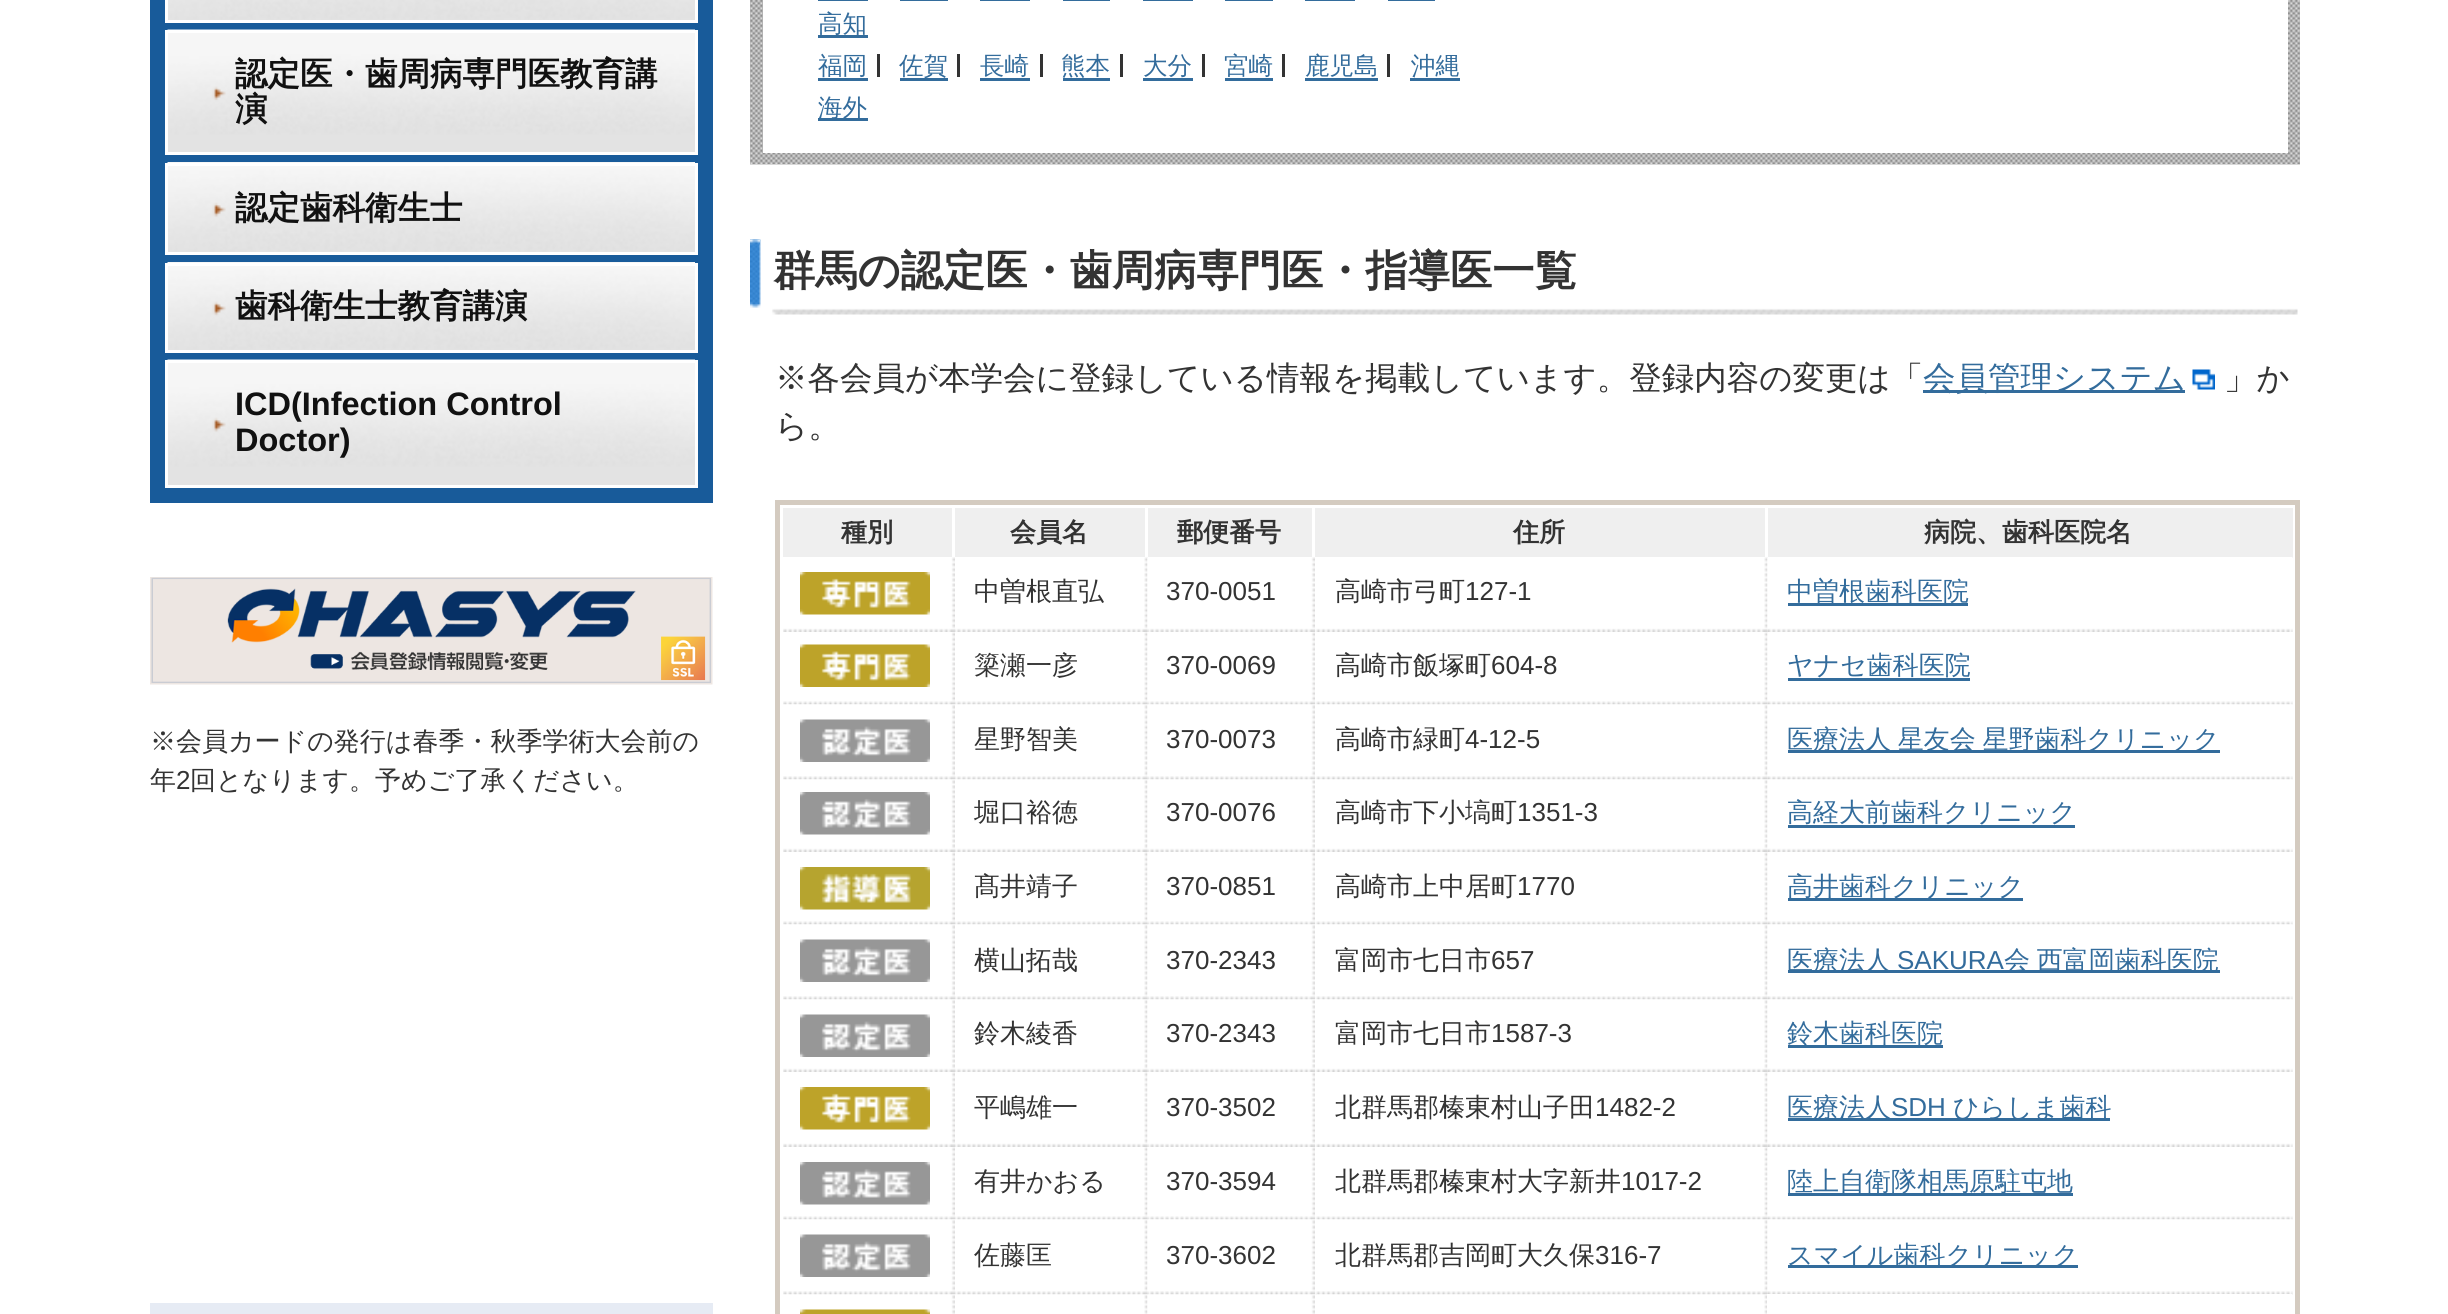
#include <cairo.h>
#include <math.h>
#include <stddef.h>

typedef struct { double x, y, w, h; unsigned color; } box_t;

static void ink(cairo_t *ctx, unsigned color) {
    cairo_set_source_rgb(ctx, (color >> 16) / 255.0, (color >> 8 & 255) / 255.0, (color & 255) / 255.0);
}

static void write_spaced(cairo_t *ctx, double x, double y, const char *s, double letter, double word) {
    cairo_move_to(ctx, x, y);
    while (*s) {
        char ch[5] = {0};
        int n = 0;
        do ch[n++] = *s++; while ((*s & 0xC0) == 0x80);
        cairo_show_text(ctx, ch);
        cairo_rel_move_to(ctx, letter + word * (*ch == ' '), 0);
    }
}

static void paste(cairo_t *ctx, const char *path, double x, double y, double w, double h) {
    cairo_surface_t *image = cairo_image_surface_create_from_png(path);
    cairo_save(ctx);
    cairo_set_source_surface(ctx, image, x, y);
    cairo_rectangle(ctx, x, y, w, h);
    cairo_fill(ctx);
    cairo_restore(ctx);
    cairo_surface_destroy(image);
}

int main(void) {
    cairo_surface_t *surface = cairo_image_surface_create(CAIRO_FORMAT_RGB24, 2448, 1314);
    cairo_t *ctx = cairo_create(surface);
    cairo_font_options_t *options = cairo_font_options_create();
    cairo_font_options_set_hint_metrics(options, CAIRO_HINT_METRICS_OFF);
    cairo_font_options_set_hint_style(options, CAIRO_HINT_STYLE_NONE);
    cairo_set_font_options(ctx, options);
    cairo_set_miter_limit(ctx, 4);
    ink(ctx, 0xFFFFFF);
    cairo_paint(ctx);
    ink(ctx, 0xE6EBF4);
    cairo_rectangle(ctx, 150, 1303, 563, 11);
    cairo_fill(ctx);
    ink(ctx, 0x185B9A);
    cairo_rectangle(ctx, 150, 0, 563, 503);
    cairo_fill(ctx);
    paste(ctx, "media/1.png", 168, 0, 527, 20);
    cairo_rectangle(ctx, 166.5, -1.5, 530, 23);
    ink(ctx, 0xFFFFFF);
    cairo_set_line_width(ctx, 3);
    cairo_stroke(ctx);
    paste(ctx, "media/2.png", 167, 29, 528, 123);
    cairo_rectangle(ctx, 166.5, 31.5, 530, 122);
    cairo_stroke(ctx);
    cairo_select_font_face(ctx, "WenQuanYi Zen Hei", CAIRO_FONT_SLANT_NORMAL, CAIRO_FONT_WEIGHT_BOLD);
    cairo_set_font_size(ctx, 32.5);
    ink(ctx, 0x111111);
    cairo_move_to(ctx, 235, 85);
    cairo_show_text(ctx, "認定医・歯周病専門医教育講");
    cairo_move_to(ctx, 235, 120);
    cairo_show_text(ctx, "演");
    paste(ctx, "media/3.png", 167, 162, 528, 90);
    cairo_rectangle(ctx, 166.5, 164.5, 530, 89);
    ink(ctx, 0xFFFFFF);
    cairo_stroke(ctx);
    ink(ctx, 0x111111);
    cairo_move_to(ctx, 235, 219);
    cairo_show_text(ctx, "認定歯科衛生士");
    paste(ctx, "media/4.png", 167, 262, 528, 88);
    cairo_rectangle(ctx, 166.5, 264.5, 530, 87);
    ink(ctx, 0xFFFFFF);
    cairo_stroke(ctx);
    ink(ctx, 0x111111);
    cairo_move_to(ctx, 235, 317);
    cairo_show_text(ctx, "歯科衛生士教育講演");
    paste(ctx, "media/5.png", 167, 359, 528, 126);
    cairo_rectangle(ctx, 166.5, 361.5, 530, 125);
    ink(ctx, 0xFFFFFF);
    cairo_stroke(ctx);
    cairo_select_font_face(ctx, "Liberation Sans", CAIRO_FONT_SLANT_NORMAL, CAIRO_FONT_WEIGHT_BOLD);
    ink(ctx, 0x111111);
    cairo_move_to(ctx, 235, 415);
    cairo_show_text(ctx, "ICD(Infection Control");
    cairo_move_to(ctx, 235, 451);
    cairo_show_text(ctx, "Doctor)");
    paste(ctx, "media/6.png", 150, 577, 563, 108);
    cairo_select_font_face(ctx, "WenQuanYi Zen Hei Medium", CAIRO_FONT_SLANT_NORMAL, CAIRO_FONT_WEIGHT_NORMAL);
    cairo_set_font_size(ctx, 26);
    ink(ctx, 0x333333);
    cairo_move_to(ctx, 150, 750);
    cairo_show_text(ctx, "※会員カードの発行は春季・秋季学術大会前の");
    cairo_move_to(ctx, 150, 789);
    cairo_show_text(ctx, "年");
    cairo_select_font_face(ctx, "Liberation Sans", CAIRO_FONT_SLANT_NORMAL, CAIRO_FONT_WEIGHT_NORMAL);
    cairo_move_to(ctx, 176, 789);
    cairo_show_text(ctx, "2");
    cairo_select_font_face(ctx, "WenQuanYi Zen Hei Medium", CAIRO_FONT_SLANT_NORMAL, CAIRO_FONT_WEIGHT_NORMAL);
    cairo_move_to(ctx, 190, 789);
    cairo_show_text(ctx, "回となります。予めご了承ください。");
    paste(ctx, "media/7.png", 750, 0, 1550, 165);
    {
        static const box_t items[] = {
            {763, 0, 1525, 153, 0xFFFFFF},
            {818, 0, 50, 1, 0x336C9C},
            {900, 0, 48, 1, 0x336C9C},
            {980, 0, 50, 1, 0x336C9C},
            {1063, 0, 47, 1, 0x336C9C},
            {1143, 0, 50, 1, 0x336C9C},
            {1225, 0, 48, 1, 0x336C9C},
            {1305, 0, 50, 1, 0x336C9C},
            {1388, 0, 47, 1, 0x336C9C},
            {818, 35, 50, 3, 0x336C9C},
        };
        for (size_t i = 0; i < sizeof items / sizeof *items; i++) {
            ink(ctx, items[i].color);
            cairo_rectangle(ctx, items[i].x, items[i].y, items[i].w, items[i].h);
            cairo_fill(ctx);
        }
    }
    cairo_set_font_size(ctx, 24.5);
    cairo_move_to(ctx, 818, 32);
    cairo_show_text(ctx, "高知");
    ink(ctx, 0x333333);
    cairo_rectangle(ctx, 877, 54, 3, 23);
    cairo_fill(ctx);
    ink(ctx, 0x336C9C);
    cairo_move_to(ctx, 818, 74);
    cairo_show_text(ctx, "福岡");
    {
        static const box_t items[] = {
            {818, 78, 50, 3, 0x336C9C},
            {957, 54, 3, 23, 0x333333},
            {900, 78, 48, 3, 0x336C9C},
        };
        for (size_t i = 0; i < sizeof items / sizeof *items; i++) {
            ink(ctx, items[i].color);
            cairo_rectangle(ctx, items[i].x, items[i].y, items[i].w, items[i].h);
            cairo_fill(ctx);
        }
    }
    cairo_move_to(ctx, 899, 74);
    cairo_show_text(ctx, "佐賀");
    ink(ctx, 0x333333);
    cairo_rectangle(ctx, 1040, 54, 3, 23);
    cairo_fill(ctx);
    ink(ctx, 0x336C9C);
    cairo_move_to(ctx, 980, 74);
    cairo_show_text(ctx, "長崎");
    cairo_rectangle(ctx, 980, 78, 50, 3);
    cairo_fill(ctx);
    ink(ctx, 0x333333);
    cairo_rectangle(ctx, 1120, 54, 3, 23);
    cairo_fill(ctx);
    ink(ctx, 0x336C9C);
    cairo_move_to(ctx, 1061, 74);
    cairo_show_text(ctx, "熊本");
    cairo_rectangle(ctx, 1063, 78, 47, 3);
    cairo_fill(ctx);
    ink(ctx, 0x333333);
    cairo_rectangle(ctx, 1202, 54, 3, 23);
    cairo_fill(ctx);
    ink(ctx, 0x336C9C);
    cairo_move_to(ctx, 1143, 74);
    cairo_show_text(ctx, "大分");
    cairo_rectangle(ctx, 1143, 78, 50, 3);
    cairo_fill(ctx);
    ink(ctx, 0x333333);
    cairo_rectangle(ctx, 1282, 54, 3, 23);
    cairo_fill(ctx);
    ink(ctx, 0x336C9C);
    cairo_move_to(ctx, 1224, 74);
    cairo_show_text(ctx, "宮崎");
    cairo_rectangle(ctx, 1225, 78, 48, 3);
    cairo_fill(ctx);
    ink(ctx, 0x333333);
    cairo_rectangle(ctx, 1387, 54, 3, 23);
    cairo_fill(ctx);
    ink(ctx, 0x336C9C);
    cairo_move_to(ctx, 1305, 74);
    cairo_show_text(ctx, "鹿児島");
    cairo_rectangle(ctx, 1305, 78, 73, 3);
    cairo_fill(ctx);
    cairo_move_to(ctx, 1411, 74);
    cairo_show_text(ctx, "沖縄");
    cairo_rectangle(ctx, 1410, 78, 50, 3);
    cairo_fill(ctx);
    cairo_rectangle(ctx, 818, 118, 50, 3);
    cairo_fill(ctx);
    cairo_move_to(ctx, 818, 116);
    cairo_show_text(ctx, "海外");
    paste(ctx, "media/8.png", 750, 239, 1548, 76);
    paste(ctx, "media/9.png", 750, 239, 10, 6);
    cairo_select_font_face(ctx, "WenQuanYi Zen Hei", CAIRO_FONT_SLANT_NORMAL, CAIRO_FONT_WEIGHT_BOLD);
    cairo_set_font_size(ctx, 42.25);
    ink(ctx, 0x333333);
    cairo_move_to(ctx, 773, 285);
    cairo_show_text(ctx, "群馬の認定医・歯周病専門医・指導医一覧");
    cairo_select_font_face(ctx, "WenQuanYi Zen Hei Medium", CAIRO_FONT_SLANT_NORMAL, CAIRO_FONT_WEIGHT_NORMAL);
    cairo_set_font_size(ctx, 32.5);
    cairo_move_to(ctx, 775, 389);
    cairo_show_text(ctx, "※各会員が本学会に登録している情報を掲載しています。登録内容の変更は「");
    ink(ctx, 0x336C9C);
    cairo_rectangle(ctx, 1923, 390, 262, 3);
    cairo_fill(ctx);
    cairo_move_to(ctx, 1923, 389);
    cairo_show_text(ctx, "会員管理システム");
    paste(ctx, "media/10.png", 2192, 369, 23, 21);
    ink(ctx, 0x333333);
    cairo_move_to(ctx, 2224, 389);
    cairo_show_text(ctx, "」か");
    cairo_move_to(ctx, 775, 437);
    cairo_show_text(ctx, "ら。");
    cairo_rectangle(ctx, 777.5, 502.5, 1520, 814);
    ink(ctx, 0xD4CBC0);
    cairo_set_line_width(ctx, 5);
    cairo_stroke(ctx);
    ink(ctx, 0xEFEFEF);
    cairo_rectangle(ctx, 783, 508, 169, 49);
    cairo_fill(ctx);
    cairo_select_font_face(ctx, "WenQuanYi Zen Hei", CAIRO_FONT_SLANT_NORMAL, CAIRO_FONT_WEIGHT_BOLD);
    cairo_set_font_size(ctx, 26);
    ink(ctx, 0x333333);
    cairo_move_to(ctx, 841, 541);
    cairo_show_text(ctx, "種別");
    ink(ctx, 0xEFEFEF);
    cairo_rectangle(ctx, 955, 508, 193, 50);
    cairo_fill(ctx);
    ink(ctx, 0xFFFFFF);
    cairo_rectangle(ctx, 1145, 508, 3, 49);
    cairo_fill(ctx);
    ink(ctx, 0x333333);
    cairo_move_to(ctx, 1010, 541);
    cairo_show_text(ctx, "会員名");
    ink(ctx, 0xEFEFEF);
    cairo_rectangle(ctx, 1148, 508, 164, 49);
    cairo_fill(ctx);
    ink(ctx, 0x333333);
    cairo_move_to(ctx, 1177, 541);
    cairo_show_text(ctx, "郵便番号");
    ink(ctx, 0xEFEFEF);
    cairo_rectangle(ctx, 1315, 508, 978, 50);
    cairo_fill(ctx);
    ink(ctx, 0xFFFFFF);
    cairo_rectangle(ctx, 1765, 508, 3, 49);
    cairo_fill(ctx);
    ink(ctx, 0x333333);
    cairo_move_to(ctx, 1513, 541);
    cairo_show_text(ctx, "住所");
    cairo_move_to(ctx, 1924, 541);
    cairo_show_text(ctx, "病院、歯科医院名");
    paste(ctx, "media/11.png", 783, 557, 172, 75);
    paste(ctx, "media/12.png", 800, 572, 130, 43);
    paste(ctx, "media/13.png", 955, 557, 193, 75);
    cairo_select_font_face(ctx, "WenQuanYi Zen Hei Medium", CAIRO_FONT_SLANT_NORMAL, CAIRO_FONT_WEIGHT_NORMAL);
    cairo_move_to(ctx, 974, 600);
    cairo_show_text(ctx, "中曽根直弘");
    paste(ctx, "media/14.png", 1147, 557, 168, 75);
    cairo_select_font_face(ctx, "Liberation Sans", CAIRO_FONT_SLANT_NORMAL, CAIRO_FONT_WEIGHT_NORMAL);
    cairo_move_to(ctx, 1166, 600);
    cairo_show_text(ctx, "370-0051");
    paste(ctx, "media/15.png", 1315, 557, 453, 75);
    cairo_select_font_face(ctx, "WenQuanYi Zen Hei Medium", CAIRO_FONT_SLANT_NORMAL, CAIRO_FONT_WEIGHT_NORMAL);
    cairo_move_to(ctx, 1335, 600);
    cairo_show_text(ctx, "高崎市弓町");
    cairo_select_font_face(ctx, "Liberation Sans", CAIRO_FONT_SLANT_NORMAL, CAIRO_FONT_WEIGHT_NORMAL);
    cairo_move_to(ctx, 1465, 600);
    cairo_show_text(ctx, "127-1");
    paste(ctx, "media/16.png", 1767, 557, 526, 75);
    ink(ctx, 0x336C9C);
    cairo_rectangle(ctx, 1788, 603, 180, 3);
    cairo_fill(ctx);
    cairo_select_font_face(ctx, "WenQuanYi Zen Hei Medium", CAIRO_FONT_SLANT_NORMAL, CAIRO_FONT_WEIGHT_NORMAL);
    cairo_move_to(ctx, 1787, 600);
    cairo_show_text(ctx, "中曽根歯科医院");
    paste(ctx, "media/17.png", 783, 632, 172, 73);
    paste(ctx, "media/18.png", 800, 644, 130, 43);
    paste(ctx, "media/19.png", 955, 632, 193, 73);
    ink(ctx, 0x333333);
    cairo_move_to(ctx, 974, 674);
    cairo_show_text(ctx, "簗瀬一彦");
    paste(ctx, "media/20.png", 1147, 632, 168, 73);
    cairo_select_font_face(ctx, "Liberation Sans", CAIRO_FONT_SLANT_NORMAL, CAIRO_FONT_WEIGHT_NORMAL);
    cairo_move_to(ctx, 1166, 674);
    cairo_show_text(ctx, "370-0069");
    paste(ctx, "media/21.png", 1315, 632, 453, 73);
    cairo_select_font_face(ctx, "WenQuanYi Zen Hei Medium", CAIRO_FONT_SLANT_NORMAL, CAIRO_FONT_WEIGHT_NORMAL);
    cairo_move_to(ctx, 1335, 674);
    cairo_show_text(ctx, "高崎市飯塚町");
    cairo_select_font_face(ctx, "Liberation Sans", CAIRO_FONT_SLANT_NORMAL, CAIRO_FONT_WEIGHT_NORMAL);
    cairo_move_to(ctx, 1491, 674);
    cairo_show_text(ctx, "604-8");
    paste(ctx, "media/22.png", 1767, 633, 526, 72);
    cairo_select_font_face(ctx, "WenQuanYi Zen Hei Medium", CAIRO_FONT_SLANT_NORMAL, CAIRO_FONT_WEIGHT_NORMAL);
    ink(ctx, 0x336C9C);
    cairo_move_to(ctx, 1787, 674);
    cairo_show_text(ctx, "ヤナセ歯科医院");
    cairo_rectangle(ctx, 1788, 678, 182, 3);
    cairo_fill(ctx);
    paste(ctx, "media/23.png", 783, 704, 172, 76);
    paste(ctx, "media/24.png", 800, 719, 130, 43);
    paste(ctx, "media/25.png", 955, 704, 193, 76);
    ink(ctx, 0x333333);
    cairo_move_to(ctx, 974, 748);
    cairo_show_text(ctx, "星野智美");
    paste(ctx, "media/26.png", 1147, 704, 168, 76);
    cairo_select_font_face(ctx, "Liberation Sans", CAIRO_FONT_SLANT_NORMAL, CAIRO_FONT_WEIGHT_NORMAL);
    cairo_move_to(ctx, 1166, 748);
    cairo_show_text(ctx, "370-0073");
    paste(ctx, "media/27.png", 1315, 704, 453, 76);
    cairo_select_font_face(ctx, "WenQuanYi Zen Hei Medium", CAIRO_FONT_SLANT_NORMAL, CAIRO_FONT_WEIGHT_NORMAL);
    cairo_move_to(ctx, 1335, 748);
    cairo_show_text(ctx, "高崎市緑町");
    cairo_select_font_face(ctx, "Liberation Sans", CAIRO_FONT_SLANT_NORMAL, CAIRO_FONT_WEIGHT_NORMAL);
    cairo_move_to(ctx, 1465, 748);
    cairo_show_text(ctx, "4-12-5");
    paste(ctx, "media/28.png", 1767, 704, 526, 76);
    ink(ctx, 0x336C9C);
    cairo_rectangle(ctx, 1788, 750, 432, 3);
    cairo_fill(ctx);
    cairo_select_font_face(ctx, "WenQuanYi Zen Hei Medium", CAIRO_FONT_SLANT_NORMAL, CAIRO_FONT_WEIGHT_NORMAL);
    write_spaced(ctx, 1787, 748, "医療法人 星友会 星野歯科クリニック", 0, -1);
    paste(ctx, "media/29.png", 783, 779, 172, 73);
    paste(ctx, "media/30.png", 800, 792, 130, 43);
    paste(ctx, "media/31.png", 955, 779, 193, 73);
    ink(ctx, 0x333333);
    cairo_move_to(ctx, 974, 821);
    cairo_show_text(ctx, "堀口裕徳");
    paste(ctx, "media/32.png", 1147, 779, 168, 73);
    cairo_select_font_face(ctx, "Liberation Sans", CAIRO_FONT_SLANT_NORMAL, CAIRO_FONT_WEIGHT_NORMAL);
    cairo_move_to(ctx, 1166, 821);
    cairo_show_text(ctx, "370-0076");
    paste(ctx, "media/33.png", 1315, 779, 453, 73);
    cairo_select_font_face(ctx, "WenQuanYi Zen Hei Medium", CAIRO_FONT_SLANT_NORMAL, CAIRO_FONT_WEIGHT_NORMAL);
    cairo_move_to(ctx, 1335, 821);
    cairo_show_text(ctx, "高崎市下小塙町");
    cairo_select_font_face(ctx, "Liberation Sans", CAIRO_FONT_SLANT_NORMAL, CAIRO_FONT_WEIGHT_NORMAL);
    cairo_move_to(ctx, 1517, 821);
    cairo_show_text(ctx, "1351-3");
    paste(ctx, "media/34.png", 1767, 779, 526, 73);
    cairo_select_font_face(ctx, "WenQuanYi Zen Hei Medium", CAIRO_FONT_SLANT_NORMAL, CAIRO_FONT_WEIGHT_NORMAL);
    ink(ctx, 0x336C9C);
    cairo_move_to(ctx, 1787, 821);
    cairo_show_text(ctx, "高経大前歯科クリニック");
    cairo_rectangle(ctx, 1788, 825, 287, 3);
    cairo_fill(ctx);
    paste(ctx, "media/17.png", 783, 852, 172, 73);
    paste(ctx, "media/35.png", 800, 867, 130, 43);
    paste(ctx, "media/19.png", 955, 852, 193, 73);
    ink(ctx, 0x333333);
    cairo_move_to(ctx, 974, 895);
    cairo_show_text(ctx, "髙井靖子");
    paste(ctx, "media/20.png", 1147, 852, 168, 73);
    cairo_select_font_face(ctx, "Liberation Sans", CAIRO_FONT_SLANT_NORMAL, CAIRO_FONT_WEIGHT_NORMAL);
    cairo_move_to(ctx, 1166, 895);
    cairo_show_text(ctx, "370-0851");
    paste(ctx, "media/21.png", 1315, 852, 453, 73);
    cairo_select_font_face(ctx, "WenQuanYi Zen Hei Medium", CAIRO_FONT_SLANT_NORMAL, CAIRO_FONT_WEIGHT_NORMAL);
    cairo_move_to(ctx, 1335, 895);
    cairo_show_text(ctx, "高崎市上中居町");
    cairo_select_font_face(ctx, "Liberation Sans", CAIRO_FONT_SLANT_NORMAL, CAIRO_FONT_WEIGHT_NORMAL);
    cairo_move_to(ctx, 1517, 895);
    cairo_show_text(ctx, "1770");
    paste(ctx, "media/22.png", 1767, 853, 526, 72);
    ink(ctx, 0x336C9C);
    cairo_rectangle(ctx, 1788, 898, 235, 3);
    cairo_fill(ctx);
    cairo_select_font_face(ctx, "WenQuanYi Zen Hei Medium", CAIRO_FONT_SLANT_NORMAL, CAIRO_FONT_WEIGHT_NORMAL);
    cairo_move_to(ctx, 1787, 895);
    cairo_show_text(ctx, "高井歯科クリニック");
    paste(ctx, "media/23.png", 783, 924, 172, 76);
    paste(ctx, "media/24.png", 800, 939, 130, 43);
    paste(ctx, "media/25.png", 955, 924, 193, 76);
    ink(ctx, 0x333333);
    cairo_move_to(ctx, 974, 969);
    cairo_show_text(ctx, "横山拓哉");
    paste(ctx, "media/26.png", 1147, 924, 168, 76);
    cairo_select_font_face(ctx, "Liberation Sans", CAIRO_FONT_SLANT_NORMAL, CAIRO_FONT_WEIGHT_NORMAL);
    cairo_move_to(ctx, 1166, 969);
    cairo_show_text(ctx, "370-2343");
    paste(ctx, "media/27.png", 1315, 924, 453, 76);
    cairo_select_font_face(ctx, "WenQuanYi Zen Hei Medium", CAIRO_FONT_SLANT_NORMAL, CAIRO_FONT_WEIGHT_NORMAL);
    cairo_move_to(ctx, 1335, 969);
    cairo_show_text(ctx, "富岡市七日市");
    cairo_select_font_face(ctx, "Liberation Sans", CAIRO_FONT_SLANT_NORMAL, CAIRO_FONT_WEIGHT_NORMAL);
    cairo_move_to(ctx, 1491, 969);
    cairo_show_text(ctx, "657");
    paste(ctx, "media/28.png", 1767, 924, 526, 76);
    ink(ctx, 0x336C9C);
    cairo_rectangle(ctx, 1788, 970, 432, 3);
    cairo_fill(ctx);
    cairo_select_font_face(ctx, "WenQuanYi Zen Hei Medium", CAIRO_FONT_SLANT_NORMAL, CAIRO_FONT_WEIGHT_NORMAL);
    cairo_move_to(ctx, 1787, 969);
    cairo_show_text(ctx, "医療法人");
    cairo_select_font_face(ctx, "Liberation Sans", CAIRO_FONT_SLANT_NORMAL, CAIRO_FONT_WEIGHT_NORMAL);
    cairo_move_to(ctx, 1897, 969);
    cairo_show_text(ctx, "SAKURA");
    cairo_select_font_face(ctx, "WenQuanYi Zen Hei Medium", CAIRO_FONT_SLANT_NORMAL, CAIRO_FONT_WEIGHT_NORMAL);
    write_spaced(ctx, 2004, 969, "会 西富岡歯科医院", 0, -1);
    paste(ctx, "media/29.png", 783, 999, 172, 73);
    paste(ctx, "media/24.png", 800, 1014, 130, 43);
    paste(ctx, "media/31.png", 955, 999, 193, 73);
    ink(ctx, 0x333333);
    cairo_move_to(ctx, 974, 1042);
    cairo_show_text(ctx, "鈴木綾香");
    paste(ctx, "media/32.png", 1147, 999, 168, 73);
    cairo_select_font_face(ctx, "Liberation Sans", CAIRO_FONT_SLANT_NORMAL, CAIRO_FONT_WEIGHT_NORMAL);
    cairo_move_to(ctx, 1166, 1042);
    cairo_show_text(ctx, "370-2343");
    paste(ctx, "media/33.png", 1315, 999, 453, 73);
    cairo_select_font_face(ctx, "WenQuanYi Zen Hei Medium", CAIRO_FONT_SLANT_NORMAL, CAIRO_FONT_WEIGHT_NORMAL);
    cairo_move_to(ctx, 1335, 1042);
    cairo_show_text(ctx, "富岡市七日市");
    cairo_select_font_face(ctx, "Liberation Sans", CAIRO_FONT_SLANT_NORMAL, CAIRO_FONT_WEIGHT_NORMAL);
    cairo_move_to(ctx, 1491, 1042);
    cairo_show_text(ctx, "1587-3");
    paste(ctx, "media/34.png", 1767, 999, 526, 73);
    ink(ctx, 0x336C9C);
    cairo_rectangle(ctx, 1788, 1045, 155, 3);
    cairo_fill(ctx);
    cairo_select_font_face(ctx, "WenQuanYi Zen Hei Medium", CAIRO_FONT_SLANT_NORMAL, CAIRO_FONT_WEIGHT_NORMAL);
    cairo_move_to(ctx, 1787, 1042);
    cairo_show_text(ctx, "鈴木歯科医院");
    paste(ctx, "media/11.png", 783, 1072, 172, 75);
    paste(ctx, "media/12.png", 800, 1087, 130, 43);
    paste(ctx, "media/36.png", 955, 1072, 193, 75);
    ink(ctx, 0x333333);
    cairo_move_to(ctx, 974, 1116);
    cairo_show_text(ctx, "平嶋雄一");
    paste(ctx, "media/37.png", 1147, 1072, 168, 75);
    cairo_select_font_face(ctx, "Liberation Sans", CAIRO_FONT_SLANT_NORMAL, CAIRO_FONT_WEIGHT_NORMAL);
    cairo_move_to(ctx, 1166, 1116);
    cairo_show_text(ctx, "370-3502");
    paste(ctx, "media/38.png", 1315, 1072, 453, 75);
    cairo_select_font_face(ctx, "WenQuanYi Zen Hei Medium", CAIRO_FONT_SLANT_NORMAL, CAIRO_FONT_WEIGHT_NORMAL);
    cairo_move_to(ctx, 1335, 1116);
    cairo_show_text(ctx, "北群馬郡榛東村山子田");
    cairo_select_font_face(ctx, "Liberation Sans", CAIRO_FONT_SLANT_NORMAL, CAIRO_FONT_WEIGHT_NORMAL);
    cairo_move_to(ctx, 1595, 1116);
    cairo_show_text(ctx, "1482-2");
    paste(ctx, "media/39.png", 1767, 1073, 526, 74);
    ink(ctx, 0x336C9C);
    cairo_rectangle(ctx, 1788, 1118, 322, 3);
    cairo_fill(ctx);
    cairo_select_font_face(ctx, "WenQuanYi Zen Hei Medium", CAIRO_FONT_SLANT_NORMAL, CAIRO_FONT_WEIGHT_NORMAL);
    cairo_move_to(ctx, 1787, 1116);
    cairo_show_text(ctx, "医療法人");
    cairo_select_font_face(ctx, "Liberation Sans", CAIRO_FONT_SLANT_NORMAL, CAIRO_FONT_WEIGHT_NORMAL);
    cairo_move_to(ctx, 1891, 1116);
    cairo_show_text(ctx, "SDH");
    cairo_select_font_face(ctx, "WenQuanYi Zen Hei Medium", CAIRO_FONT_SLANT_NORMAL, CAIRO_FONT_WEIGHT_NORMAL);
    cairo_move_to(ctx, 1953, 1116);
    cairo_show_text(ctx, "ひらしま歯科");
    paste(ctx, "media/17.png", 783, 1147, 172, 73);
    paste(ctx, "media/30.png", 800, 1162, 130, 43);
    paste(ctx, "media/19.png", 955, 1147, 193, 73);
    ink(ctx, 0x333333);
    cairo_move_to(ctx, 974, 1190);
    cairo_show_text(ctx, "有井かおる");
    paste(ctx, "media/20.png", 1147, 1147, 168, 73);
    cairo_select_font_face(ctx, "Liberation Sans", CAIRO_FONT_SLANT_NORMAL, CAIRO_FONT_WEIGHT_NORMAL);
    cairo_move_to(ctx, 1166, 1190);
    cairo_show_text(ctx, "370-3594");
    paste(ctx, "media/21.png", 1315, 1147, 453, 73);
    cairo_select_font_face(ctx, "WenQuanYi Zen Hei Medium", CAIRO_FONT_SLANT_NORMAL, CAIRO_FONT_WEIGHT_NORMAL);
    cairo_move_to(ctx, 1335, 1190);
    cairo_show_text(ctx, "北群馬郡榛東村大字新井");
    cairo_select_font_face(ctx, "Liberation Sans", CAIRO_FONT_SLANT_NORMAL, CAIRO_FONT_WEIGHT_NORMAL);
    cairo_move_to(ctx, 1621, 1190);
    cairo_show_text(ctx, "1017-2");
    paste(ctx, "media/22.png", 1767, 1148, 526, 72);
    ink(ctx, 0x336C9C);
    cairo_rectangle(ctx, 1788, 1193, 285, 3);
    cairo_fill(ctx);
    cairo_select_font_face(ctx, "WenQuanYi Zen Hei Medium", CAIRO_FONT_SLANT_NORMAL, CAIRO_FONT_WEIGHT_NORMAL);
    cairo_move_to(ctx, 1787, 1190);
    cairo_show_text(ctx, "陸上自衛隊相馬原駐屯地");
    paste(ctx, "media/23.png", 783, 1219, 172, 76);
    paste(ctx, "media/24.png", 800, 1234, 130, 43);
    paste(ctx, "media/25.png", 955, 1219, 193, 76);
    ink(ctx, 0x333333);
    cairo_move_to(ctx, 974, 1264);
    cairo_show_text(ctx, "佐藤匡");
    paste(ctx, "media/26.png", 1147, 1219, 168, 76);
    cairo_select_font_face(ctx, "Liberation Sans", CAIRO_FONT_SLANT_NORMAL, CAIRO_FONT_WEIGHT_NORMAL);
    cairo_move_to(ctx, 1166, 1264);
    cairo_show_text(ctx, "370-3602");
    paste(ctx, "media/27.png", 1315, 1219, 453, 76);
    cairo_select_font_face(ctx, "WenQuanYi Zen Hei Medium", CAIRO_FONT_SLANT_NORMAL, CAIRO_FONT_WEIGHT_NORMAL);
    cairo_move_to(ctx, 1335, 1264);
    cairo_show_text(ctx, "北群馬郡吉岡町大久保");
    cairo_select_font_face(ctx, "Liberation Sans", CAIRO_FONT_SLANT_NORMAL, CAIRO_FONT_WEIGHT_NORMAL);
    cairo_move_to(ctx, 1595, 1264);
    cairo_show_text(ctx, "316-7");
    paste(ctx, "media/28.png", 1767, 1219, 526, 76);
    ink(ctx, 0x336C9C);
    cairo_rectangle(ctx, 1788, 1265, 290, 3);
    cairo_fill(ctx);
    cairo_select_font_face(ctx, "WenQuanYi Zen Hei Medium", CAIRO_FONT_SLANT_NORMAL, CAIRO_FONT_WEIGHT_NORMAL);
    cairo_move_to(ctx, 1787, 1264);
    cairo_show_text(ctx, "スマイル歯科クリニック");
    paste(ctx, "media/40.png", 783, 1294, 172, 20);
    paste(ctx, "media/41.png", 800, 1309, 130, 5);
    paste(ctx, "media/42.png", 955, 1294, 193, 20);
    paste(ctx, "media/43.png", 1147, 1294, 168, 20);
    paste(ctx, "media/44.png", 1317, 1294, 450, 20);
    ink(ctx, 0xFFFFFF);
    cairo_rectangle(ctx, 1767, 1294, 525, 1);
    cairo_fill(ctx);
    cairo_surface_write_to_png(surface, "image.png");
    cairo_font_options_destroy(options);
    cairo_destroy(ctx);
    cairo_surface_destroy(surface);
    return 0;
}
